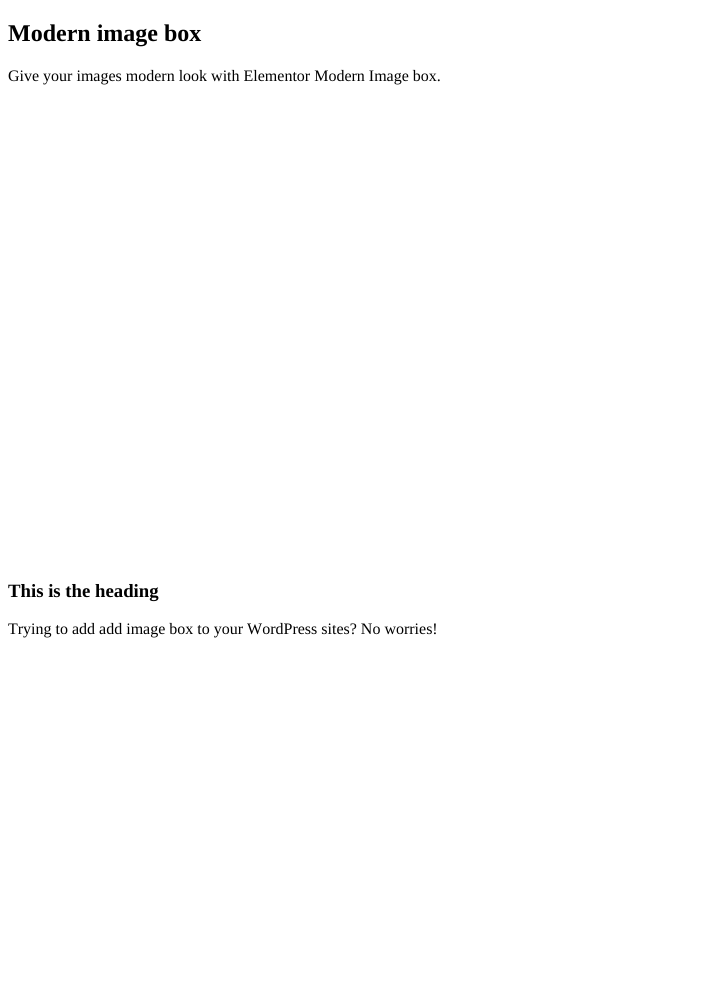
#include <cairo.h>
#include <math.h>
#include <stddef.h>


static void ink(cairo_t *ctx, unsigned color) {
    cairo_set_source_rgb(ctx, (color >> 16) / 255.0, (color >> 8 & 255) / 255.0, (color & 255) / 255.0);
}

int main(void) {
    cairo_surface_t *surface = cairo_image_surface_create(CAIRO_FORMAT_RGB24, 726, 1007);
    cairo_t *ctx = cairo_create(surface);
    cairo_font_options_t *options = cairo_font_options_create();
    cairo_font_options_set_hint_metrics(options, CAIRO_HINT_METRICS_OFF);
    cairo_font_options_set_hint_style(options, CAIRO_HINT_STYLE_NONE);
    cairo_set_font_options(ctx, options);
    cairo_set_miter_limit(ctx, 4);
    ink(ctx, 0xFFFFFF);
    cairo_paint(ctx);
    cairo_select_font_face(ctx, "Liberation Serif", CAIRO_FONT_SLANT_NORMAL, CAIRO_FONT_WEIGHT_BOLD);
    cairo_set_font_size(ctx, 24);
    ink(ctx, 0x000000);
    cairo_move_to(ctx, 8, 41);
    cairo_show_text(ctx, "Modern image box");
    cairo_select_font_face(ctx, "Liberation Serif", CAIRO_FONT_SLANT_NORMAL, CAIRO_FONT_WEIGHT_NORMAL);
    cairo_set_font_size(ctx, 16);
    cairo_move_to(ctx, 8, 81);
    cairo_show_text(ctx, "Give your images modern look with Elementor Modern Image box.");
    cairo_select_font_face(ctx, "Liberation Serif", CAIRO_FONT_SLANT_NORMAL, CAIRO_FONT_WEIGHT_BOLD);
    cairo_set_font_size(ctx, 18.75);
    cairo_move_to(ctx, 8, 597);
    cairo_show_text(ctx, "This is the heading");
    cairo_select_font_face(ctx, "Liberation Serif", CAIRO_FONT_SLANT_NORMAL, CAIRO_FONT_WEIGHT_NORMAL);
    cairo_set_font_size(ctx, 16);
    cairo_move_to(ctx, 8, 634);
    cairo_show_text(ctx, "Trying to add add image box to your WordPress sites? No worries!");
    cairo_surface_write_to_png(surface, "image.png");
    cairo_font_options_destroy(options);
    cairo_destroy(ctx);
    cairo_surface_destroy(surface);
    return 0;
}
